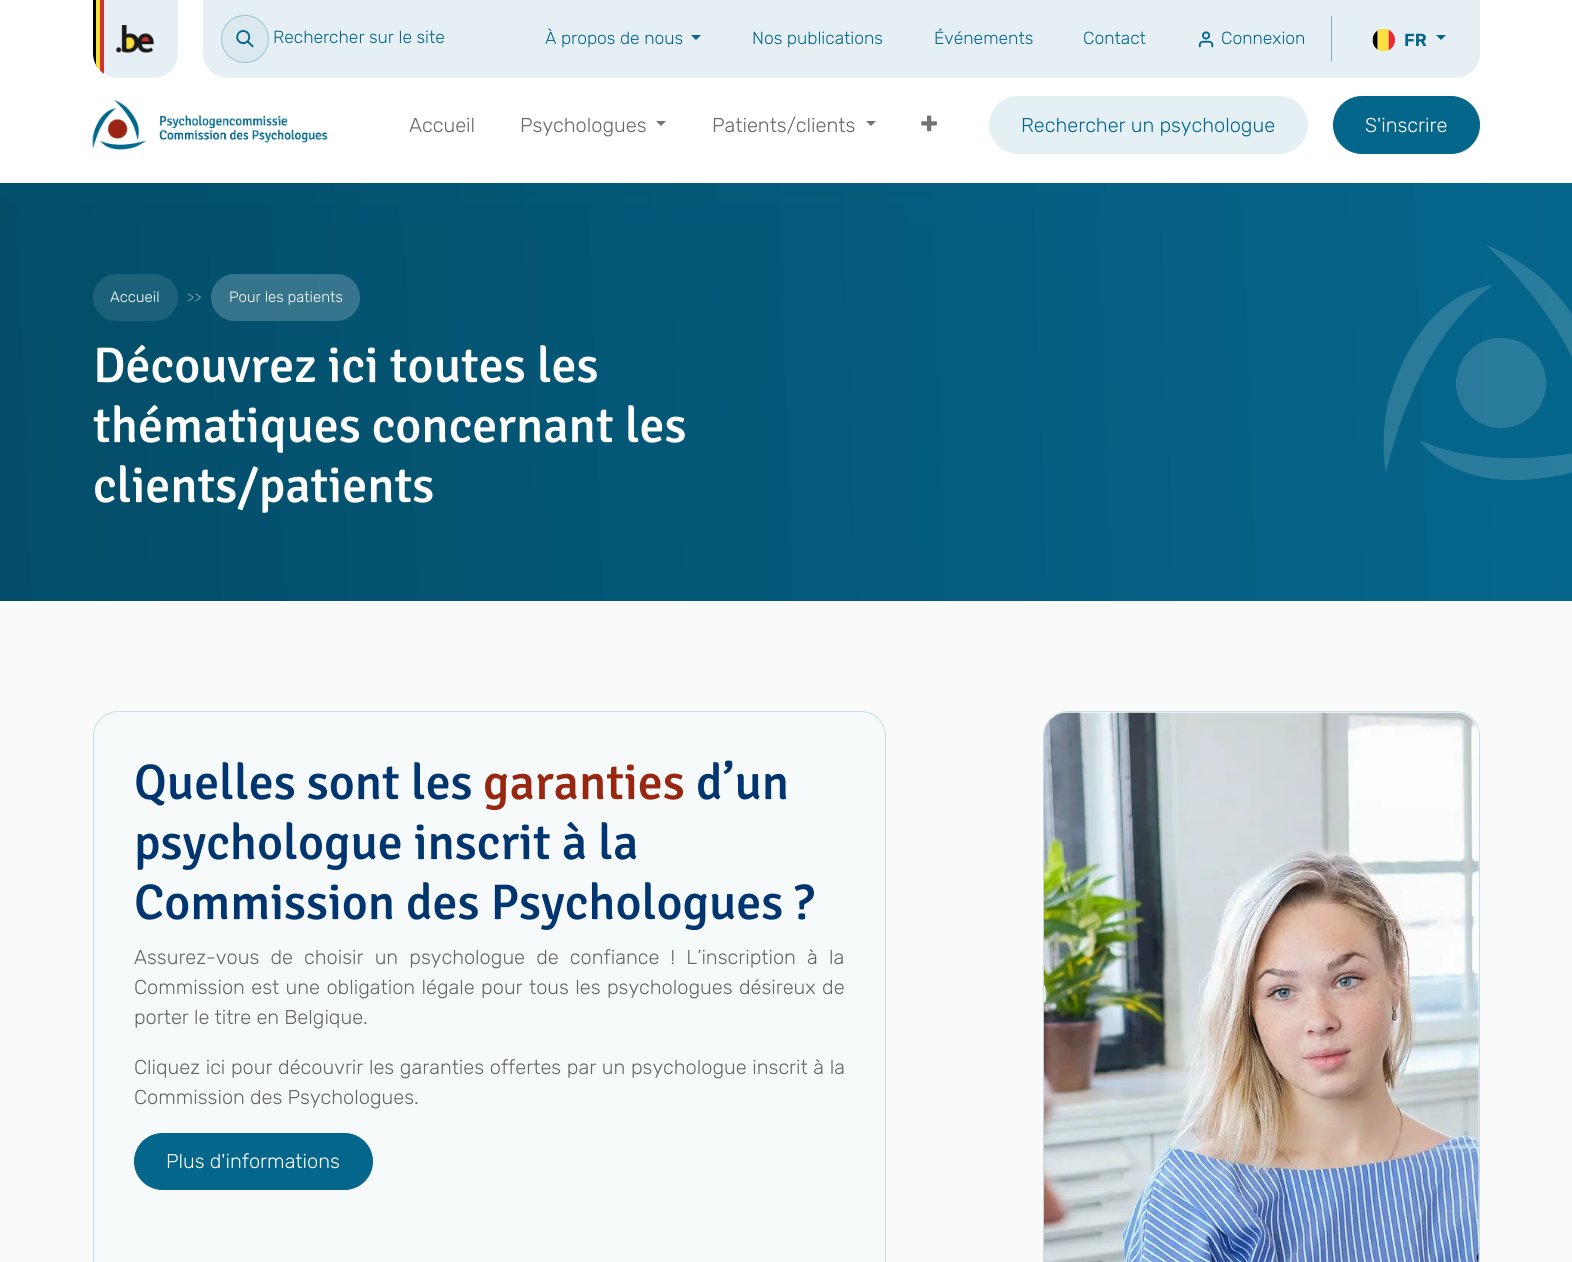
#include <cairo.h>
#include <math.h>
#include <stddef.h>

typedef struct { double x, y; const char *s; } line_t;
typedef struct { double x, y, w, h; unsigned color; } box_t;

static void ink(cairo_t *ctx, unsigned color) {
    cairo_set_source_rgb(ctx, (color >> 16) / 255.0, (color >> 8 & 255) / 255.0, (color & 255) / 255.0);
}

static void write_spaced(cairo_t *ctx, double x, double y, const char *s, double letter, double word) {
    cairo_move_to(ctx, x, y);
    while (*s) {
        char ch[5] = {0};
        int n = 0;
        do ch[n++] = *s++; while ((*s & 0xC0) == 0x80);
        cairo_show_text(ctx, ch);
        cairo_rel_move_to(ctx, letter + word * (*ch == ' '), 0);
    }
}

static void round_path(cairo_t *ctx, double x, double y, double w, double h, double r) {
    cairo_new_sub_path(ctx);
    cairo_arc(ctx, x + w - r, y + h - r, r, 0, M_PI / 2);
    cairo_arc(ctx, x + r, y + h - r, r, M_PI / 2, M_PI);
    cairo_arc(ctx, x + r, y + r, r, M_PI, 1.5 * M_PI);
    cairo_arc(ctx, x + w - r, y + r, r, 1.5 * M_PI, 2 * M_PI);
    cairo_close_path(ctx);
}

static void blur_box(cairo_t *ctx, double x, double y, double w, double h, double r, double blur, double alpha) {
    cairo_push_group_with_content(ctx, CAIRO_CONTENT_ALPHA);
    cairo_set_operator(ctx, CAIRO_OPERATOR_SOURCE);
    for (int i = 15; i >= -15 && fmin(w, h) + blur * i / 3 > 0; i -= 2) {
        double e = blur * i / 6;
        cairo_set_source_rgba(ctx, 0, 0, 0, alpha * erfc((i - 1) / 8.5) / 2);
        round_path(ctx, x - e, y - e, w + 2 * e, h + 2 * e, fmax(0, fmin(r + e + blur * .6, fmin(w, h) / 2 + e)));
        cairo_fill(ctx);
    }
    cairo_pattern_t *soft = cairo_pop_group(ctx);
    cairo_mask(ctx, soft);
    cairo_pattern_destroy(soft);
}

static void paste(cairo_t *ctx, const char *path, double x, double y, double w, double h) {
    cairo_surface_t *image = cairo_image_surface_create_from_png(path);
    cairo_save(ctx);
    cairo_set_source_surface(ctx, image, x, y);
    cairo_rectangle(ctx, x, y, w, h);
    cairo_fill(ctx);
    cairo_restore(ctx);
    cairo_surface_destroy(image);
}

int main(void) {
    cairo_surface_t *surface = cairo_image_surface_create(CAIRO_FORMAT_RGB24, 1572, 1262);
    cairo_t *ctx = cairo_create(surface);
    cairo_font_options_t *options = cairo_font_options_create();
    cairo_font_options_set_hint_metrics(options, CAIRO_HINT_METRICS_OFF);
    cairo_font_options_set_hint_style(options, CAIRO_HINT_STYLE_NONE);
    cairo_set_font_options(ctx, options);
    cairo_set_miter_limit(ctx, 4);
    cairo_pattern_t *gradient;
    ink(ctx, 0xFAFAFA);
    cairo_paint(ctx);
    gradient = cairo_pattern_create_linear(-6.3, 420, 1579, 364);
    cairo_pattern_add_color_stop_rgba(gradient, 0, 0.012, 0.302, 0.408, 1);
    cairo_pattern_add_color_stop_rgba(gradient, 1, 0.02, 0.4, 0.549, 1);
    cairo_set_source(ctx, gradient);
    cairo_pattern_destroy(gradient);
    cairo_rectangle(ctx, 0, 183, 1572, 418);
    cairo_fill(ctx);
    paste(ctx, "media/7.png", 1383, 245, 189, 235);
    ink(ctx, 0x05668C);
    blur_box(ctx, 6, 11, 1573, 183, 0, 19, 0.08);
    ink(ctx, 0xFFFFFF);
    cairo_rectangle(ctx, 0, 0, 1572, 183);
    cairo_fill(ctx);
    ink(ctx, 0xE6F0F4);
    cairo_new_path(ctx);
    cairo_move_to(ctx, 93, 0);
    cairo_line_to(ctx, 178, 0);
    cairo_line_to(ctx, 178, 53);
    cairo_curve_to(ctx, 178, 67, 167, 78, 153, 78);
    cairo_line_to(ctx, 118, 78);
    cairo_curve_to(ctx, 104, 78, 93, 67, 93, 53);
    cairo_close_path(ctx);
    cairo_fill(ctx);
    cairo_save(ctx);
    cairo_new_path(ctx);
    cairo_move_to(ctx, 93, 0);
    cairo_line_to(ctx, 178, 0);
    cairo_line_to(ctx, 178, 53);
    cairo_curve_to(ctx, 178, 67, 167, 78, 153, 78);
    cairo_line_to(ctx, 118, 78);
    cairo_curve_to(ctx, 104, 78, 93, 67, 93, 53);
    cairo_close_path(ctx);
    cairo_clip(ctx);
    {
        static const box_t items[] = {
            {93, 0, 4, 67, 0x000000},
            {96, 0, 4, 78, 0xF9DE39},
            {100, 0, 4, 78, 0xD23231},
        };
        for (size_t i = 0; i < sizeof items / sizeof *items; i++) {
            ink(ctx, items[i].color);
            cairo_rectangle(ctx, items[i].x, items[i].y, items[i].w, items[i].h);
            cairo_fill(ctx);
        }
    }
    cairo_restore(ctx);
    paste(ctx, "media/1.png", 116, 25, 38, 28);
    cairo_new_path(ctx);
    cairo_move_to(ctx, 203, 0);
    cairo_line_to(ctx, 1480, 0);
    cairo_line_to(ctx, 1480, 53);
    cairo_curve_to(ctx, 1480, 67, 1469, 78, 1455, 78);
    cairo_line_to(ctx, 228, 78);
    cairo_curve_to(ctx, 214, 78, 203, 67, 203, 53);
    cairo_close_path(ctx);
    cairo_fill(ctx);
    ink(ctx, 0xDBE9EF);
    cairo_arc(ctx, 245, 39, 24, 0, 2 * M_PI);
    cairo_fill(ctx);
    cairo_arc(ctx, 245, 39, 23.5, 0, 2 * M_PI);
    cairo_set_source_rgba(ctx, 0.02, 0.4, 0.549, 0.3);
    cairo_set_line_width(ctx, 1);
    cairo_stroke(ctx);
    paste(ctx, "media/2.png", 236, 30, 18, 18);
    cairo_select_font_face(ctx, "Rubik Light", CAIRO_FONT_SLANT_NORMAL, CAIRO_FONT_WEIGHT_NORMAL);
    cairo_set_font_size(ctx, 17.5);
    ink(ctx, 0x05668C);
    cairo_move_to(ctx, 273, 43);
    cairo_show_text(ctx, "Rechercher sur le site");
    cairo_move_to(ctx, 545, 44);
    cairo_show_text(ctx, "À propos de nous");
    cairo_new_path(ctx);
    cairo_move_to(ctx, 691, 35);
    cairo_line_to(ctx, 701, 35);
    cairo_line_to(ctx, 696, 40);
    cairo_close_path(ctx);
    cairo_fill(ctx);
    {
        static const line_t items[] = {
            {752, 44, "Nos publications"},
            {934, 44, "Événements"},
            {1083, 44, "Contact"},
        };
        for (size_t i = 0; i < sizeof items / sizeof *items; i++) {
            cairo_move_to(ctx, items[i].x, items[i].y);
            cairo_show_text(ctx, items[i].s);
        }
    }
    paste(ctx, "media/3.png", 1198, 31, 16, 17);
    cairo_move_to(ctx, 1221, 44);
    cairo_show_text(ctx, "Connexion");
    ink(ctx, 0x76ABC0);
    cairo_rectangle(ctx, 1331, 16, 1, 45);
    cairo_fill(ctx);
    paste(ctx, "media/4.png", 1372, 28, 23, 24);
    cairo_select_font_face(ctx, "Rubik SemiBold", CAIRO_FONT_SLANT_NORMAL, CAIRO_FONT_WEIGHT_NORMAL);
    ink(ctx, 0x05668C);
    cairo_move_to(ctx, 1404, 46);
    cairo_show_text(ctx, "FR");
    cairo_new_path(ctx);
    cairo_move_to(ctx, 1436, 35);
    cairo_line_to(ctx, 1446, 35);
    cairo_line_to(ctx, 1441, 40);
    cairo_close_path(ctx);
    cairo_fill(ctx);
    paste(ctx, "media/5.png", 92, 100, 236, 50);
    cairo_select_font_face(ctx, "Rubik Light", CAIRO_FONT_SLANT_NORMAL, CAIRO_FONT_WEIGHT_NORMAL);
    cairo_set_font_size(ctx, 20);
    ink(ctx, 0x666666);
    cairo_move_to(ctx, 409, 132);
    cairo_show_text(ctx, "Accueil");
    cairo_move_to(ctx, 520, 132);
    cairo_show_text(ctx, "Psychologues");
    ink(ctx, 0x737373);
    cairo_new_path(ctx);
    cairo_move_to(ctx, 656, 121);
    cairo_line_to(ctx, 666, 121);
    cairo_line_to(ctx, 661, 126);
    cairo_close_path(ctx);
    cairo_fill(ctx);
    ink(ctx, 0x666666);
    cairo_move_to(ctx, 712, 132);
    cairo_show_text(ctx, "Patients/clients");
    ink(ctx, 0x737373);
    cairo_new_path(ctx);
    cairo_move_to(ctx, 866, 121);
    cairo_line_to(ctx, 876, 121);
    cairo_line_to(ctx, 871, 126);
    cairo_close_path(ctx);
    cairo_fill(ctx);
    paste(ctx, "media/6.png", 921, 115, 16, 17);
    ink(ctx, 0xE5F0F4);
    round_path(ctx, 989.5, 96.5, 318, 57, 28.5);
    cairo_fill_preserve(ctx);
    cairo_stroke(ctx);
    ink(ctx, 0x05668C);
    cairo_move_to(ctx, 1021, 132);
    cairo_show_text(ctx, "Rechercher un psychologue");
    round_path(ctx, 1333.5, 96.5, 146, 57, 28.5);
    cairo_fill_preserve(ctx);
    cairo_stroke(ctx);
    ink(ctx, 0xFFFFFF);
    cairo_move_to(ctx, 1365, 132);
    cairo_show_text(ctx, "S'inscrire");
    ink(ctx, 0x1C617A);
    round_path(ctx, 93, 274, 85, 47, 23.5);
    cairo_fill(ctx);
    cairo_set_font_size(ctx, 15);
    ink(ctx, 0xFFFFFF);
    cairo_move_to(ctx, 110, 302);
    cairo_show_text(ctx, "Accueil");
    ink(ctx, 0x81A8B6);
    cairo_move_to(ctx, 187, 302);
    cairo_show_text(ctx, ">>");
    cairo_set_source_rgba(ctx, 1, 1, 1, 0.2);
    round_path(ctx, 211, 274, 149, 47, 23.5);
    cairo_fill(ctx);
    ink(ctx, 0xFFFFFF);
    cairo_move_to(ctx, 229, 302);
    cairo_show_text(ctx, "Pour les patients");
    cairo_select_font_face(ctx, "Signika Medium", CAIRO_FONT_SLANT_NORMAL, CAIRO_FONT_WEIGHT_NORMAL);
    cairo_set_font_size(ctx, 50);
    {
        static const line_t items[] = {
            {93, 382, "Découvrez ici toutes les"},
            {93, 442, "thématiques concernant les"},
            {93, 502, "clients/patients"},
        };
        for (size_t i = 0; i < sizeof items / sizeof *items; i++) {
            cairo_move_to(ctx, items[i].x, items[i].y);
            cairo_show_text(ctx, items[i].s);
        }
    }
    ink(ctx, 0xF7FAFB);
    cairo_new_path(ctx);
    cairo_move_to(ctx, 118, 711);
    cairo_line_to(ctx, 861, 711);
    cairo_curve_to(ctx, 875, 711, 886, 722, 886, 736);
    cairo_line_to(ctx, 886, 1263);
    cairo_line_to(ctx, 93, 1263);
    cairo_line_to(ctx, 93, 736);
    cairo_curve_to(ctx, 93, 722, 104, 711, 118, 711);
    cairo_close_path(ctx);
    cairo_fill(ctx);
    round_path(ctx, 93.5, 711.5, 792, 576, 24.5);
    ink(ctx, 0xC7DCE5);
    cairo_stroke(ctx);
    ink(ctx, 0x00356F);
    cairo_move_to(ctx, 134, 799);
    cairo_show_text(ctx, "Quelles sont les");
    ink(ctx, 0x982611);
    cairo_move_to(ctx, 483, 799);
    cairo_show_text(ctx, "garanties");
    ink(ctx, 0x00356F);
    {
        static const line_t items[] = {
            {696, 799, "d’un"},
            {134, 859, "psychologue inscrit à la"},
            {134, 919, "Commission des Psychologues ?"},
        };
        for (size_t i = 0; i < sizeof items / sizeof *items; i++) {
            cairo_move_to(ctx, items[i].x, items[i].y);
            cairo_show_text(ctx, items[i].s);
        }
    }
    cairo_select_font_face(ctx, "Rubik Light", CAIRO_FONT_SLANT_NORMAL, CAIRO_FONT_WEIGHT_NORMAL);
    cairo_set_font_size(ctx, 20);
    ink(ctx, 0x666666);
    write_spaced(ctx, 134, 964, "Assurez-vous de choisir un psychologue de confiance ! L’inscription à la", 0, 6);
    write_spaced(ctx, 134, 994, "Commission est une obligation légale pour tous les psychologues désireux de", 0, 1.25);
    cairo_move_to(ctx, 134, 1024);
    cairo_show_text(ctx, "porter le titre en Belgique.");
    write_spaced(ctx, 134, 1074, "Cliquez ici pour découvrir les garanties offertes par un psychologue inscrit à la", 0, 0.5);
    cairo_move_to(ctx, 134, 1104);
    cairo_show_text(ctx, "Commission des Psychologues.");
    ink(ctx, 0x05668C);
    round_path(ctx, 134.5, 1133.5, 238, 56, 28);
    cairo_fill_preserve(ctx);
    cairo_stroke(ctx);
    ink(ctx, 0xFFFFFF);
    cairo_move_to(ctx, 166, 1168);
    cairo_show_text(ctx, "Plus d'informations");
    round_path(ctx, 1043.5, 711.5, 436, 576, 24.5);
    ink(ctx, 0xC9DCE4);
    cairo_stroke(ctx);
    paste(ctx, "media/8.png", 1043, 712, 436, 550);
    cairo_surface_write_to_png(surface, "image.png");
    cairo_font_options_destroy(options);
    cairo_destroy(ctx);
    cairo_surface_destroy(surface);
    return 0;
}
